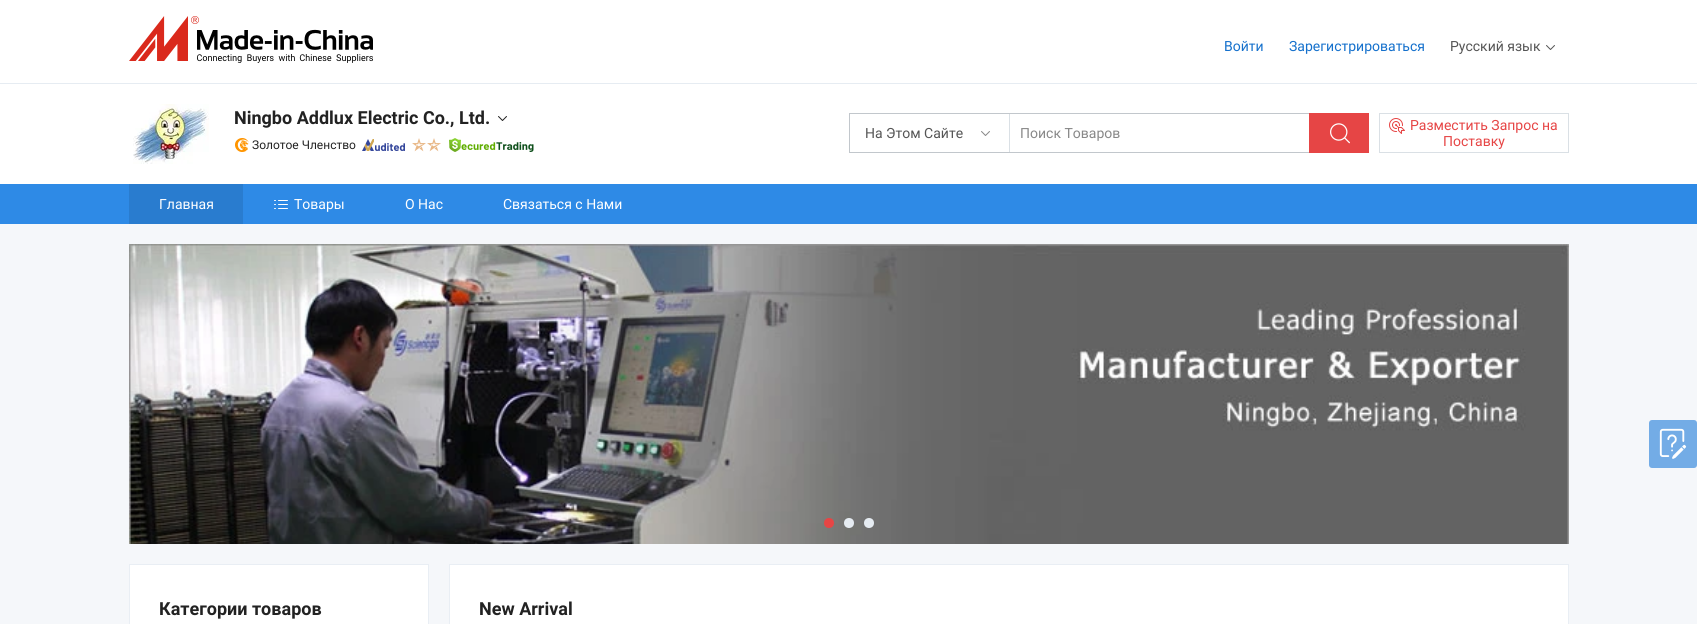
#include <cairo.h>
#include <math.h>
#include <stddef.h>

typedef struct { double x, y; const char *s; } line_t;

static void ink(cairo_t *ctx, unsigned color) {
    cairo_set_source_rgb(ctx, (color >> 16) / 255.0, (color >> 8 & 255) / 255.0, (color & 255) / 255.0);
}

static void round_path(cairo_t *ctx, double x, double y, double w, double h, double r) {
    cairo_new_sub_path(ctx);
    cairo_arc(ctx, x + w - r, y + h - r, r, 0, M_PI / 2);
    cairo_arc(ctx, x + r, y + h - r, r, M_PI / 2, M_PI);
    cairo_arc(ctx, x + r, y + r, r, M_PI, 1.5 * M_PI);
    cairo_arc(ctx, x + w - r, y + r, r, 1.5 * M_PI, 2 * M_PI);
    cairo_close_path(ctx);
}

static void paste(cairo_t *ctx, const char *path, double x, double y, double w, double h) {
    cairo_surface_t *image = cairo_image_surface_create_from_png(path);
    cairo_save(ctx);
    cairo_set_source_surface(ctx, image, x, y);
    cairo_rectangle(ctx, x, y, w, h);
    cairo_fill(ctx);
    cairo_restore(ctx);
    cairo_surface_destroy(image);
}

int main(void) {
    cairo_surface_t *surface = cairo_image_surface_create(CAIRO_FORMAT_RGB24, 1697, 624);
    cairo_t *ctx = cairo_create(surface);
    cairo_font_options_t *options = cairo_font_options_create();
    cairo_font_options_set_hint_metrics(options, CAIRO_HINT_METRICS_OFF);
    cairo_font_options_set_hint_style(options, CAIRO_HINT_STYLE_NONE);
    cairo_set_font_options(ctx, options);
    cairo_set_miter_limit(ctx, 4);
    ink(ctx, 0xFFFFFF);
    cairo_paint(ctx);
    ink(ctx, 0xE6ECF2);
    cairo_rectangle(ctx, 0, 83, 1697, 1);
    cairo_fill(ctx);
    paste(ctx, "media/1.png", 133, 104, 76, 60);
    cairo_select_font_face(ctx, "Roboto", CAIRO_FONT_SLANT_NORMAL, CAIRO_FONT_WEIGHT_BOLD);
    cairo_set_font_size(ctx, 18);
    ink(ctx, 0x222222);
    cairo_move_to(ctx, 234, 124);
    cairo_show_text(ctx, "Ningbo Addlux Electric Co., Ltd.");
    paste(ctx, "media/2.png", 498, 116, 9, 5);
    paste(ctx, "media/3.png", 235, 138, 14, 14);
    cairo_select_font_face(ctx, "Roboto", CAIRO_FONT_SLANT_NORMAL, CAIRO_FONT_WEIGHT_NORMAL);
    cairo_set_font_size(ctx, 12);
    cairo_move_to(ctx, 252, 149);
    cairo_show_text(ctx, "Золотое Членство");
    paste(ctx, "media/4.png", 362, 139, 43, 12);
    paste(ctx, "media/5.png", 412, 138, 14, 14);
    paste(ctx, "media/5.png", 427, 138, 14, 14);
    paste(ctx, "media/6.png", 449, 138, 85, 14);
    paste(ctx, "media/7.png", 129, 16, 244, 47);
    cairo_set_font_size(ctx, 14);
    ink(ctx, 0x1470CC);
    cairo_move_to(ctx, 1224, 51);
    cairo_show_text(ctx, "Войти");
    cairo_move_to(ctx, 1289, 51);
    cairo_show_text(ctx, "Зарегистрироваться");
    ink(ctx, 0x555555);
    cairo_move_to(ctx, 1450, 51);
    cairo_show_text(ctx, "Русский язык");
    paste(ctx, "media/8.png", 1546, 45, 9, 5);
    cairo_rectangle(ctx, 849.5, 113.5, 519, 39);
    ink(ctx, 0xC2C7CC);
    cairo_set_line_width(ctx, 1);
    cairo_stroke(ctx);
    ink(ctx, 0xDAE0E5);
    cairo_rectangle(ctx, 1009, 114, 1, 38);
    cairo_fill(ctx);
    ink(ctx, 0x555555);
    cairo_move_to(ctx, 865, 138);
    cairo_show_text(ctx, "На Этом Сайте");
    paste(ctx, "media/9.png", 981, 131, 9, 5);
    ink(ctx, 0x888888);
    cairo_move_to(ctx, 1020, 138);
    cairo_show_text(ctx, "Поиск Товаров");
    ink(ctx, 0xE64545);
    cairo_rectangle(ctx, 1309, 113, 60, 40);
    cairo_fill(ctx);
    paste(ctx, "media/10.png", 1330, 123, 20, 21);
    cairo_rectangle(ctx, 1379.5, 113.5, 189, 39);
    ink(ctx, 0xDAE0E5);
    cairo_stroke(ctx);
    paste(ctx, "media/11.png", 1389, 118, 16, 16);
    ink(ctx, 0xE64545);
    cairo_move_to(ctx, 1410, 130);
    cairo_show_text(ctx, "Разместить Запрос на");
    cairo_move_to(ctx, 1443, 146);
    cairo_show_text(ctx, "Поставку");
    ink(ctx, 0x2E8AE6);
    cairo_rectangle(ctx, 0, 184, 1697, 40);
    cairo_fill(ctx);
    ink(ctx, 0x297CCF);
    cairo_rectangle(ctx, 129, 184, 114, 40);
    cairo_fill(ctx);
    ink(ctx, 0xFFFFFF);
    cairo_move_to(ctx, 159, 209);
    cairo_show_text(ctx, "Главная");
    paste(ctx, "media/12.png", 274, 200, 14, 9);
    {
        static const line_t items[] = {
            {294, 209, "Товары"},
            {405, 209, "О Нас"},
            {503, 209, "Связаться с Нами"},
        };
        for (size_t i = 0; i < sizeof items / sizeof *items; i++) {
            cairo_move_to(ctx, items[i].x, items[i].y);
            cairo_show_text(ctx, items[i].s);
        }
    }
    ink(ctx, 0xF5F7FA);
    cairo_rectangle(ctx, 0, 224, 1697, 400);
    cairo_fill(ctx);
    ink(ctx, 0x73ACE6);
    round_path(ctx, 1649, 420, 48, 48, 3);
    cairo_fill(ctx);
    paste(ctx, "media/13.png", 1659, 428, 28, 31);
    paste(ctx, "media/14.png", 129, 244, 1440, 300);
    ink(ctx, 0xE64545);
    cairo_arc(ctx, 829, 523, 5, 0, 2 * M_PI);
    cairo_fill(ctx);
    ink(ctx, 0xE6ECF2);
    cairo_arc(ctx, 849, 523, 5, 0, 2 * M_PI);
    cairo_fill(ctx);
    cairo_arc(ctx, 869, 523, 5, 0, 2 * M_PI);
    cairo_fill(ctx);
    ink(ctx, 0xFFFFFF);
    cairo_rectangle(ctx, 129.5, 564.5, 299, 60);
    cairo_fill_preserve(ctx);
    ink(ctx, 0xE9EEF4);
    cairo_stroke(ctx);
    cairo_select_font_face(ctx, "Roboto", CAIRO_FONT_SLANT_NORMAL, CAIRO_FONT_WEIGHT_BOLD);
    cairo_set_font_size(ctx, 18);
    ink(ctx, 0x222222);
    cairo_move_to(ctx, 159, 615);
    cairo_show_text(ctx, "Категории товаров");
    ink(ctx, 0xFFFFFF);
    cairo_rectangle(ctx, 449.5, 564.5, 1119, 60);
    cairo_fill_preserve(ctx);
    ink(ctx, 0xE9EEF4);
    cairo_stroke(ctx);
    ink(ctx, 0x222222);
    cairo_move_to(ctx, 479, 615);
    cairo_show_text(ctx, "New Arrival");
    cairo_surface_write_to_png(surface, "image.png");
    cairo_font_options_destroy(options);
    cairo_destroy(ctx);
    cairo_surface_destroy(surface);
    return 0;
}
